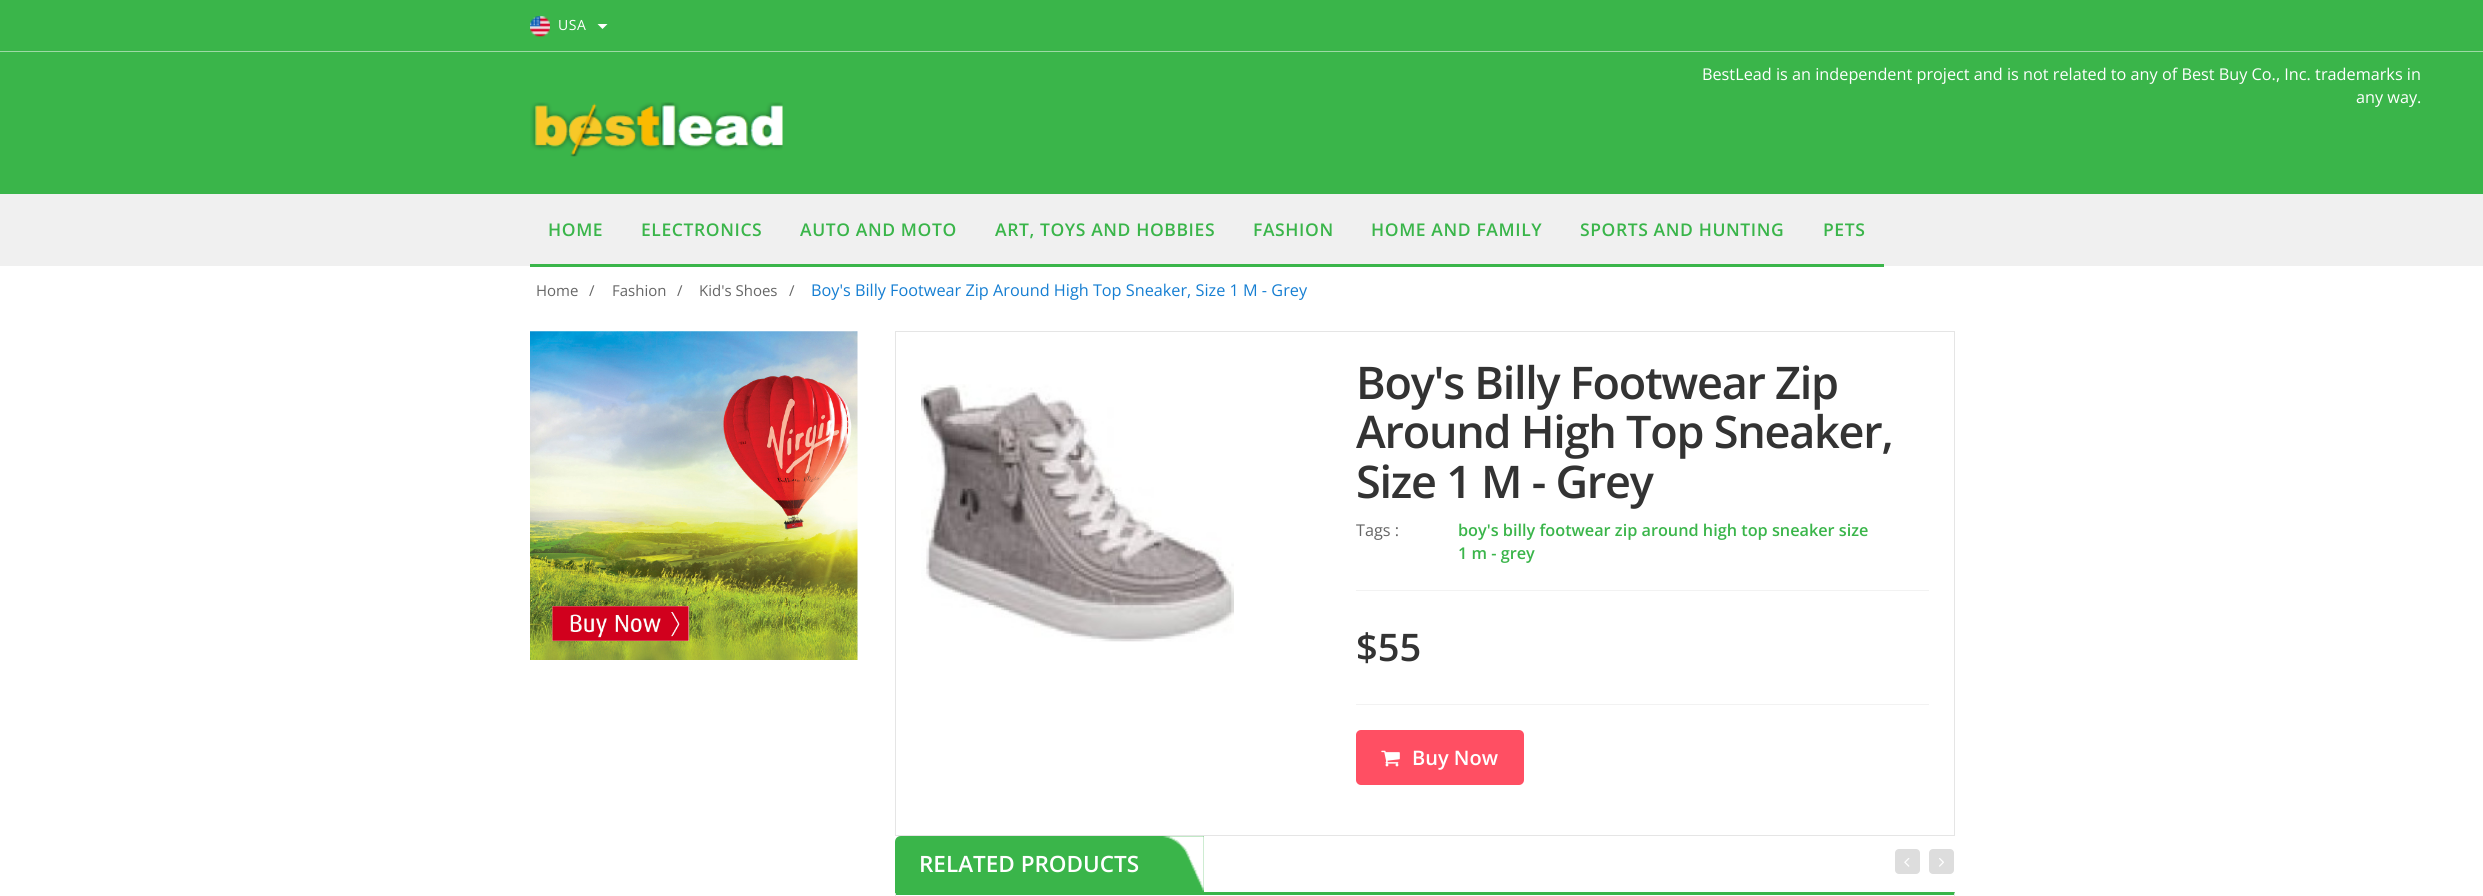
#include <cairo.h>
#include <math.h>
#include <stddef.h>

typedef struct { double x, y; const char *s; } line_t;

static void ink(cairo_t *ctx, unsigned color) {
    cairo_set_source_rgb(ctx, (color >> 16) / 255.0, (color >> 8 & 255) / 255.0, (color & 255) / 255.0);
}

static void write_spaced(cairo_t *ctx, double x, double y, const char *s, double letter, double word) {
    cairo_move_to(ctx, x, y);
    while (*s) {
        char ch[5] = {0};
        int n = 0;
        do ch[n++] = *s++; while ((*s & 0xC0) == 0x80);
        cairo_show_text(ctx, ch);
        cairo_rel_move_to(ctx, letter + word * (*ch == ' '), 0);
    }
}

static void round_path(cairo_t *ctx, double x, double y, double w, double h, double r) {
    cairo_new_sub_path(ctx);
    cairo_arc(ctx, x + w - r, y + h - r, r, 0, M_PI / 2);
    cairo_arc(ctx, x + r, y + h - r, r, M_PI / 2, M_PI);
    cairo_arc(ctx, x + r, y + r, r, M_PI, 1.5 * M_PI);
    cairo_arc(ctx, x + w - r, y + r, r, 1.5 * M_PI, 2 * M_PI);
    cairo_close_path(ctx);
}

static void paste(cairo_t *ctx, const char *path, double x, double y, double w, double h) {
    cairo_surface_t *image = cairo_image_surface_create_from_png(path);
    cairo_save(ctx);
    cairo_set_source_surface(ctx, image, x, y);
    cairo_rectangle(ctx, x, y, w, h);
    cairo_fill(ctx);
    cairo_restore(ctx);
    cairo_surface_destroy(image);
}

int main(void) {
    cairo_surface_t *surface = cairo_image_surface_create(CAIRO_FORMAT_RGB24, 2483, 896);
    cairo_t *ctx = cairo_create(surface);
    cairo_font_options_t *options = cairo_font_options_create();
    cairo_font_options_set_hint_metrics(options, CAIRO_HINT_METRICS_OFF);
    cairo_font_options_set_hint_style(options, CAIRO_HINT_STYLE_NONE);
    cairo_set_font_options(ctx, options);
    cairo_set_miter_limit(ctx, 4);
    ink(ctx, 0xFFFFFF);
    cairo_paint(ctx);
    ink(ctx, 0x3AB54A);
    cairo_rectangle(ctx, 0, 0, 2483, 194);
    cairo_fill(ctx);
    ink(ctx, 0x9DDAA5);
    cairo_rectangle(ctx, 0, 51, 2483, 1);
    cairo_fill(ctx);
    paste(ctx, "media/1.png", 530, 16, 20, 21);
    cairo_select_font_face(ctx, "Open Sans", CAIRO_FONT_SLANT_NORMAL, CAIRO_FONT_WEIGHT_NORMAL);
    cairo_set_font_size(ctx, 14);
    ink(ctx, 0xFFFFFF);
    write_spaced(ctx, 558, 30, "USA", 0.6, 0);
    cairo_new_path(ctx);
    cairo_move_to(ctx, 597.5, 24);
    cairo_line_to(ctx, 607.5, 24);
    cairo_line_to(ctx, 602.5, 29);
    cairo_close_path(ctx);
    cairo_fill(ctx);
    cairo_set_font_size(ctx, 16.25);
    cairo_move_to(ctx, 1702, 80);
    cairo_show_text(ctx, "BestLead is an independent project and is not related to any of Best Buy Co., Inc. trademarks in");
    cairo_move_to(ctx, 2356, 103);
    cairo_show_text(ctx, "any way.");
    paste(ctx, "media/2.png", 530, 102, 253, 55);
    ink(ctx, 0xF0F0F0);
    cairo_rectangle(ctx, 0, 194, 2483, 72);
    cairo_fill(ctx);
    ink(ctx, 0x3AB54A);
    cairo_rectangle(ctx, 530, 264, 1354, 3);
    cairo_fill(ctx);
    cairo_select_font_face(ctx, "Open Sans SemiBold", CAIRO_FONT_SLANT_NORMAL, CAIRO_FONT_WEIGHT_NORMAL);
    cairo_set_font_size(ctx, 17.5);
    {
        static const line_t items[] = {
            {548, 236, "HOME"},
            {641, 236, "ELECTRONICS"},
            {800, 236, "AUTO AND MOTO"},
            {995, 236, "ART, TOYS AND HOBBIES"},
            {1253, 236, "FASHION"},
            {1371, 236, "HOME AND FAMILY"},
            {1580, 236, "SPORTS AND HUNTING"},
            {1823, 236, "PETS"},
        };
        for (size_t i = 0; i < sizeof items / sizeof *items; i++) {
            write_spaced(ctx, items[i].x, items[i].y, items[i].s, 0.6, 0);
        }
    }
    cairo_select_font_face(ctx, "Open Sans", CAIRO_FONT_SLANT_NORMAL, CAIRO_FONT_WEIGHT_NORMAL);
    cairo_set_font_size(ctx, 15);
    ink(ctx, 0x666666);
    {
        static const line_t items[] = {
            {536, 296, "Home"},
            {589, 296, "/"},
            {612, 296, "Fashion"},
            {677, 296, "/"},
            {699, 296, "Kid's Shoes"},
            {789, 296, "/"},
        };
        for (size_t i = 0; i < sizeof items / sizeof *items; i++) {
            cairo_move_to(ctx, items[i].x, items[i].y);
            cairo_show_text(ctx, items[i].s);
        }
    }
    cairo_set_font_size(ctx, 16.25);
    ink(ctx, 0x157ED2);
    cairo_move_to(ctx, 811, 296);
    cairo_show_text(ctx, "Boy's Billy Footwear Zip Around High Top Sneaker, Size 1 M - Grey");
    paste(ctx, "media/3.png", 530, 331, 328, 329);
    cairo_rectangle(ctx, 895.5, 331.5, 1059, 504);
    ink(ctx, 0xE5E5E5);
    cairo_set_line_width(ctx, 1);
    cairo_stroke(ctx);
    paste(ctx, "media/4.png", 921, 384, 313, 258);
    cairo_select_font_face(ctx, "Open Sans SemiBold", CAIRO_FONT_SLANT_NORMAL, CAIRO_FONT_WEIGHT_NORMAL);
    cairo_set_font_size(ctx, 45);
    ink(ctx, 0x333333);
    {
        static const line_t items[] = {
            {1356, 399, "Boy's Billy Footwear Zip"},
            {1356, 448, "Around High Top Sneaker,"},
            {1356, 498, "Size 1 M - Grey"},
        };
        for (size_t i = 0; i < sizeof items / sizeof *items; i++) {
            write_spaced(ctx, items[i].x, items[i].y, items[i].s, -1.25, 0);
        }
    }
    cairo_select_font_face(ctx, "Open Sans", CAIRO_FONT_SLANT_NORMAL, CAIRO_FONT_WEIGHT_NORMAL);
    cairo_set_font_size(ctx, 16.25);
    ink(ctx, 0x666666);
    cairo_move_to(ctx, 1356, 536);
    cairo_show_text(ctx, "Tags :");
    cairo_select_font_face(ctx, "Open Sans SemiBold", CAIRO_FONT_SLANT_NORMAL, CAIRO_FONT_WEIGHT_NORMAL);
    ink(ctx, 0x3AB54A);
    cairo_move_to(ctx, 1458, 536);
    cairo_show_text(ctx, "boy's billy footwear zip around high top sneaker size");
    cairo_move_to(ctx, 1458, 559);
    cairo_show_text(ctx, "1 m - grey");
    ink(ctx, 0xF2F2F2);
    cairo_rectangle(ctx, 1356, 590, 573, 1);
    cairo_fill(ctx);
    cairo_rectangle(ctx, 1356, 704, 573, 1);
    cairo_fill(ctx);
    cairo_set_font_size(ctx, 38);
    ink(ctx, 0x333333);
    cairo_move_to(ctx, 1356, 661);
    cairo_show_text(ctx, "$55");
    ink(ctx, 0xFF4F63);
    round_path(ctx, 1356, 730, 168, 55, 5);
    cairo_fill(ctx);
    paste(ctx, "media/5.png", 1381, 750, 19, 17);
    cairo_set_font_size(ctx, 20);
    ink(ctx, 0xFFFFFF);
    cairo_move_to(ctx, 1412, 765);
    cairo_show_text(ctx, "Buy Now");
    ink(ctx, 0x3AB54A);
    cairo_new_path(ctx);
    cairo_move_to(ctx, 895, 892);
    cairo_line_to(ctx, 1955, 892);
    cairo_line_to(ctx, 1954, 895);
    cairo_line_to(ctx, 896, 895);
    cairo_close_path(ctx);
    cairo_fill(ctx);
    ink(ctx, 0xE5E5E5);
    cairo_new_path(ctx);
    cairo_move_to(ctx, 1955, 892);
    cairo_line_to(ctx, 1955, 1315);
    cairo_line_to(ctx, 1954, 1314);
    cairo_line_to(ctx, 1954, 895);
    cairo_close_path(ctx);
    cairo_fill(ctx);
    cairo_new_path(ctx);
    cairo_move_to(ctx, 895, 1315);
    cairo_line_to(ctx, 895, 892);
    cairo_line_to(ctx, 896, 895);
    cairo_line_to(ctx, 896, 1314);
    cairo_close_path(ctx);
    cairo_fill(ctx);
    ink(ctx, 0xDDDDDD);
    round_path(ctx, 1895, 849, 25, 25, 4);
    cairo_fill(ctx);
    paste(ctx, "media/6.png", 1904, 858, 6, 9);
    round_path(ctx, 1929, 849, 25, 25, 4);
    cairo_fill(ctx);
    paste(ctx, "media/7.png", 1939, 858, 5, 9);
    ink(ctx, 0x3AB54A);
    cairo_new_path(ctx);
    cairo_move_to(ctx, 901, 836);
    cairo_line_to(ctx, 1204, 836);
    cairo_line_to(ctx, 1204, 893);
    cairo_line_to(ctx, 895, 893);
    cairo_line_to(ctx, 895, 842);
    cairo_curve_to(ctx, 895, 838.5, 897.5, 836, 901, 836);
    cairo_close_path(ctx);
    cairo_fill(ctx);
    cairo_set_font_size(ctx, 22.5);
    ink(ctx, 0xFFFFFF);
    cairo_move_to(ctx, 919, 872);
    cairo_show_text(ctx, "RELATED PRODUCTS");
    paste(ctx, "media/8.png", 1163, 836, 41, 56);
    cairo_surface_write_to_png(surface, "image.png");
    cairo_font_options_destroy(options);
    cairo_destroy(ctx);
    cairo_surface_destroy(surface);
    return 0;
}
